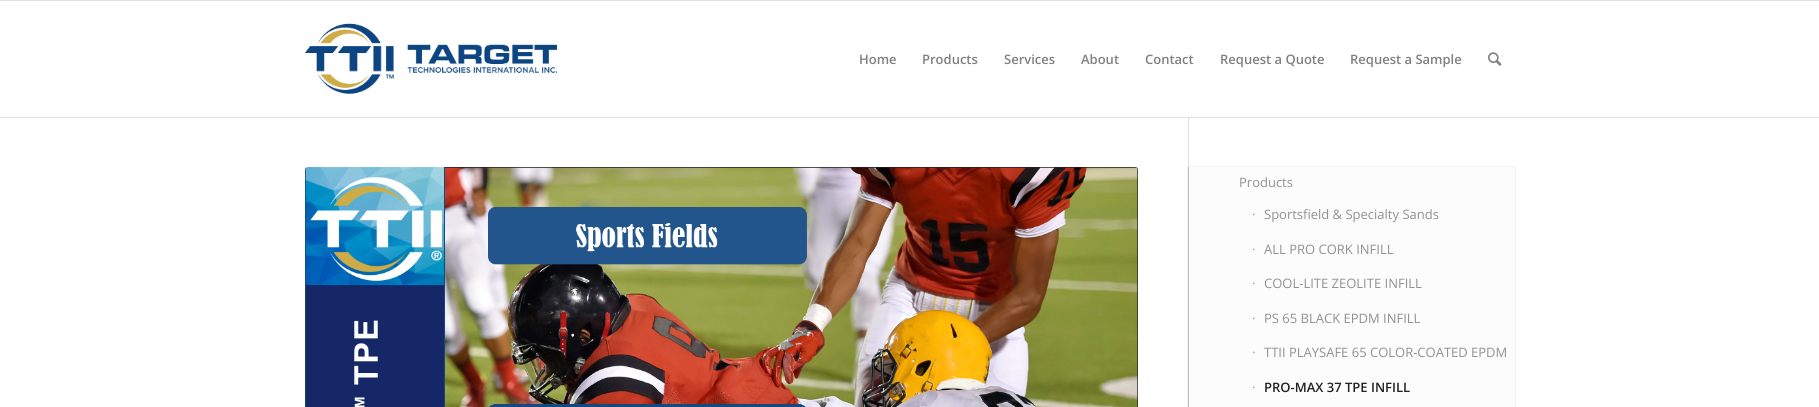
#include <cairo.h>
#include <math.h>
#include <stddef.h>

typedef struct { double x, y; const char *s; } line_t;
typedef struct { double x, y, w, h; unsigned color; } box_t;

static void ink(cairo_t *ctx, unsigned color) {
    cairo_set_source_rgb(ctx, (color >> 16) / 255.0, (color >> 8 & 255) / 255.0, (color & 255) / 255.0);
}

static void round_path(cairo_t *ctx, double x, double y, double w, double h, double r) {
    cairo_new_sub_path(ctx);
    cairo_arc(ctx, x + w - r, y + h - r, r, 0, M_PI / 2);
    cairo_arc(ctx, x + r, y + h - r, r, M_PI / 2, M_PI);
    cairo_arc(ctx, x + r, y + r, r, M_PI, 1.5 * M_PI);
    cairo_arc(ctx, x + w - r, y + r, r, 1.5 * M_PI, 2 * M_PI);
    cairo_close_path(ctx);
}

static void blur_box(cairo_t *ctx, double x, double y, double w, double h, double r, double blur, double alpha) {
    cairo_push_group_with_content(ctx, CAIRO_CONTENT_ALPHA);
    cairo_set_operator(ctx, CAIRO_OPERATOR_SOURCE);
    for (int i = 15; i >= -15 && fmin(w, h) + blur * i / 3 > 0; i -= 2) {
        double e = blur * i / 6;
        cairo_set_source_rgba(ctx, 0, 0, 0, alpha * erfc((i - 1) / 8.5) / 2);
        round_path(ctx, x - e, y - e, w + 2 * e, h + 2 * e, fmax(0, fmin(r + e + blur * .6, fmin(w, h) / 2 + e)));
        cairo_fill(ctx);
    }
    cairo_pattern_t *soft = cairo_pop_group(ctx);
    cairo_mask(ctx, soft);
    cairo_pattern_destroy(soft);
}

static void paste(cairo_t *ctx, const char *path, double x, double y, double w, double h) {
    cairo_surface_t *image = cairo_image_surface_create_from_png(path);
    cairo_save(ctx);
    cairo_set_source_surface(ctx, image, x, y);
    cairo_rectangle(ctx, x, y, w, h);
    cairo_fill(ctx);
    cairo_restore(ctx);
    cairo_surface_destroy(image);
}

int main(void) {
    cairo_surface_t *surface = cairo_image_surface_create(CAIRO_FORMAT_RGB24, 1819, 407);
    cairo_t *ctx = cairo_create(surface);
    cairo_font_options_t *options = cairo_font_options_create();
    cairo_font_options_set_hint_metrics(options, CAIRO_HINT_METRICS_OFF);
    cairo_font_options_set_hint_style(options, CAIRO_HINT_STYLE_NONE);
    cairo_set_font_options(ctx, options);
    cairo_set_miter_limit(ctx, 4);
    ink(ctx, 0xFFFFFF);
    cairo_paint(ctx);
    {
        static const box_t items[] = {
            {0, 0, 1819, 1, 0xE1E1E1},
            {1188, 117, 1, 290, 0xE1E1E1},
            {0, 117, 1819, 1, 0xE1E1E1},
        };
        for (size_t i = 0; i < sizeof items / sizeof *items; i++) {
            ink(ctx, items[i].color);
            cairo_rectangle(ctx, items[i].x, items[i].y, items[i].w, items[i].h);
            cairo_fill(ctx);
        }
    }
    paste(ctx, "media/1.png", 305, 23, 252, 71);
    cairo_select_font_face(ctx, "Open Sans SemiBold", CAIRO_FONT_SLANT_NORMAL, CAIRO_FONT_WEIGHT_NORMAL);
    cairo_set_font_size(ctx, 13);
    ink(ctx, 0x808080);
    {
        static const line_t items[] = {
            {859, 64, "Home"},
            {922, 64, "Products"},
            {1004, 64, "Services"},
            {1081, 64, "About"},
            {1145, 64, "Contact"},
            {1220, 64, "Request a Quote"},
            {1350, 64, "Request a Sample"},
        };
        for (size_t i = 0; i < sizeof items / sizeof *items; i++) {
            cairo_move_to(ctx, items[i].x, items[i].y);
            cairo_show_text(ctx, items[i].s);
        }
    }
    paste(ctx, "media/2.png", 1488, 52, 14, 14);
    paste(ctx, "media/3.png", 305, 167, 833, 240);
    ink(ctx, 0x000000);
    blur_box(ctx, 1188, 167, 327, 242, 0, 0.5, 0.2);
    ink(ctx, 0xFCFCFC);
    cairo_rectangle(ctx, 1189, 167, 326, 240);
    cairo_fill(ctx);
    cairo_select_font_face(ctx, "Open Sans", CAIRO_FONT_SLANT_NORMAL, CAIRO_FONT_WEIGHT_NORMAL);
    ink(ctx, 0x919191);
    cairo_move_to(ctx, 1239, 187);
    cairo_show_text(ctx, "Products");
    cairo_select_font_face(ctx, "Liberation Sans", CAIRO_FONT_SLANT_NORMAL, CAIRO_FONT_WEIGHT_NORMAL);
    cairo_move_to(ctx, 1252, 218);
    cairo_show_text(ctx, "∙");
    cairo_select_font_face(ctx, "Open Sans", CAIRO_FONT_SLANT_NORMAL, CAIRO_FONT_WEIGHT_NORMAL);
    cairo_move_to(ctx, 1264, 219);
    cairo_show_text(ctx, "Sportsfield & Specialty Sands");
    cairo_select_font_face(ctx, "Liberation Sans", CAIRO_FONT_SLANT_NORMAL, CAIRO_FONT_WEIGHT_NORMAL);
    cairo_move_to(ctx, 1252, 253);
    cairo_show_text(ctx, "∙");
    cairo_select_font_face(ctx, "Open Sans", CAIRO_FONT_SLANT_NORMAL, CAIRO_FONT_WEIGHT_NORMAL);
    cairo_move_to(ctx, 1264, 254);
    cairo_show_text(ctx, "ALL PRO CORK INFILL");
    cairo_select_font_face(ctx, "Liberation Sans", CAIRO_FONT_SLANT_NORMAL, CAIRO_FONT_WEIGHT_NORMAL);
    cairo_move_to(ctx, 1252, 287);
    cairo_show_text(ctx, "∙");
    cairo_select_font_face(ctx, "Open Sans", CAIRO_FONT_SLANT_NORMAL, CAIRO_FONT_WEIGHT_NORMAL);
    cairo_move_to(ctx, 1264, 288);
    cairo_show_text(ctx, "COOL-LITE ZEOLITE INFILL");
    cairo_select_font_face(ctx, "Liberation Sans", CAIRO_FONT_SLANT_NORMAL, CAIRO_FONT_WEIGHT_NORMAL);
    cairo_move_to(ctx, 1252, 322);
    cairo_show_text(ctx, "∙");
    cairo_select_font_face(ctx, "Open Sans", CAIRO_FONT_SLANT_NORMAL, CAIRO_FONT_WEIGHT_NORMAL);
    cairo_move_to(ctx, 1264, 323);
    cairo_show_text(ctx, "PS 65 BLACK EPDM INFILL");
    cairo_select_font_face(ctx, "Liberation Sans", CAIRO_FONT_SLANT_NORMAL, CAIRO_FONT_WEIGHT_NORMAL);
    cairo_move_to(ctx, 1252, 356);
    cairo_show_text(ctx, "∙");
    cairo_select_font_face(ctx, "Open Sans", CAIRO_FONT_SLANT_NORMAL, CAIRO_FONT_WEIGHT_NORMAL);
    cairo_move_to(ctx, 1264, 357);
    cairo_show_text(ctx, "TTII PLAYSAFE 65 COLOR-COATED EPDM");
    cairo_select_font_face(ctx, "Liberation Sans", CAIRO_FONT_SLANT_NORMAL, CAIRO_FONT_WEIGHT_NORMAL);
    cairo_move_to(ctx, 1252, 391);
    cairo_show_text(ctx, "∙");
    cairo_select_font_face(ctx, "Open Sans SemiBold", CAIRO_FONT_SLANT_NORMAL, CAIRO_FONT_WEIGHT_NORMAL);
    ink(ctx, 0x222222);
    cairo_move_to(ctx, 1264, 392);
    cairo_show_text(ctx, "PRO-MAX 37 TPE INFILL");
    cairo_surface_write_to_png(surface, "image.png");
    cairo_font_options_destroy(options);
    cairo_destroy(ctx);
    cairo_surface_destroy(surface);
    return 0;
}
